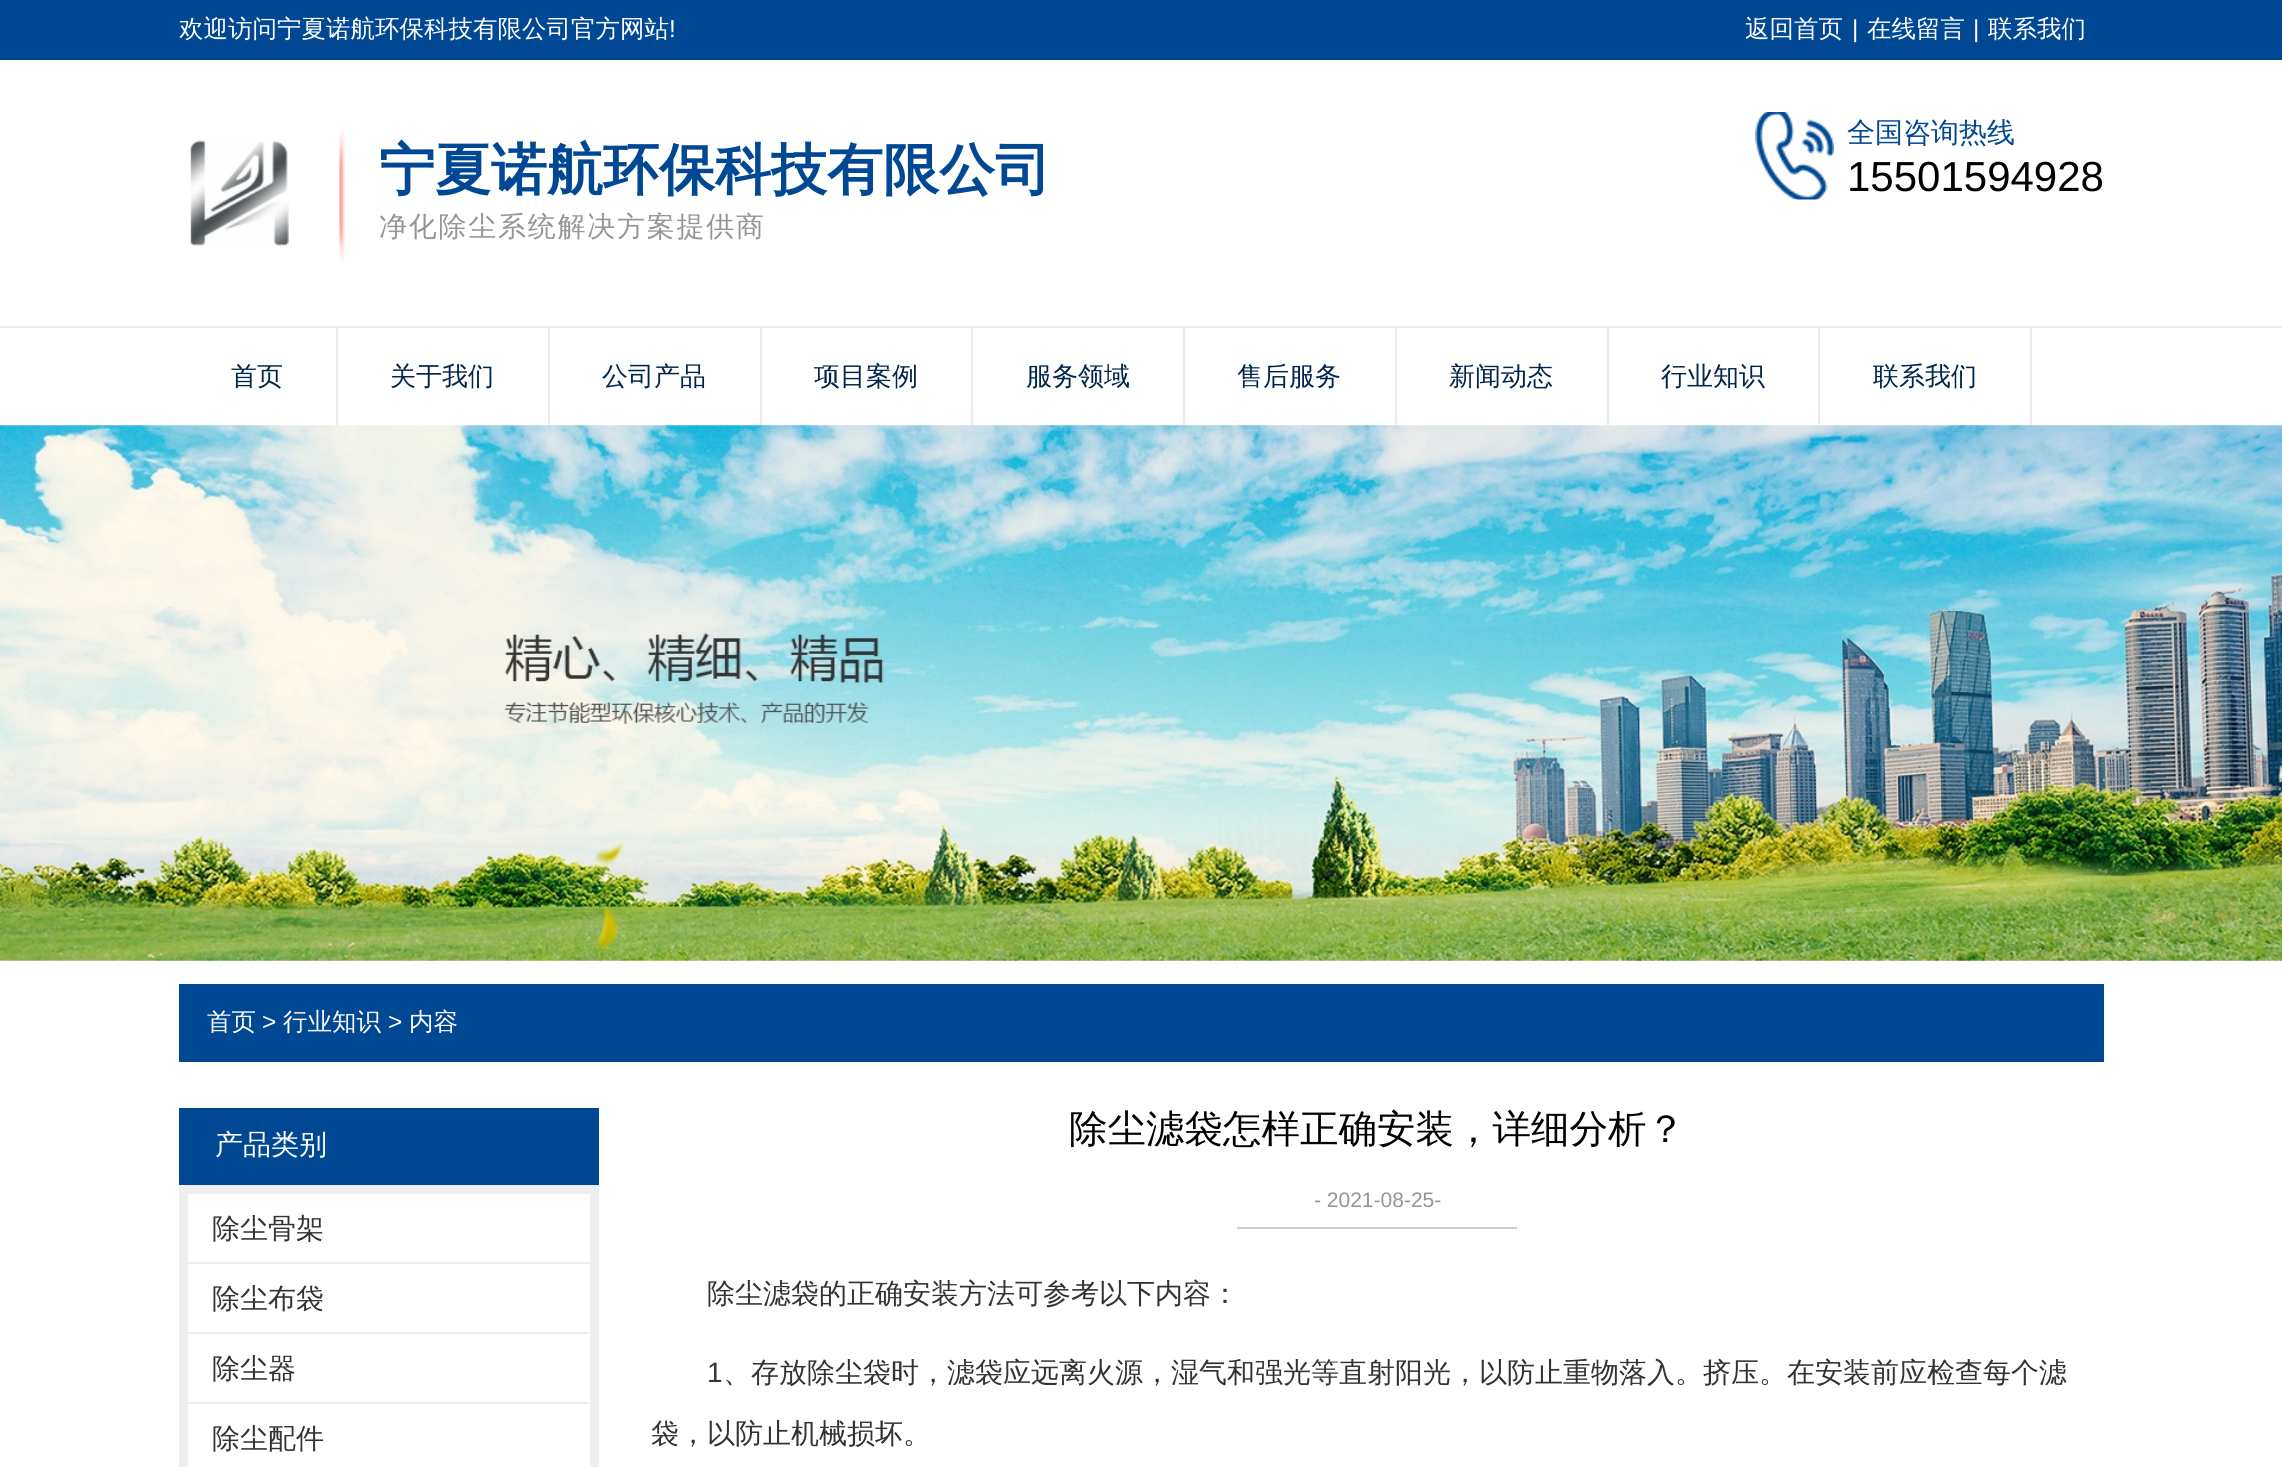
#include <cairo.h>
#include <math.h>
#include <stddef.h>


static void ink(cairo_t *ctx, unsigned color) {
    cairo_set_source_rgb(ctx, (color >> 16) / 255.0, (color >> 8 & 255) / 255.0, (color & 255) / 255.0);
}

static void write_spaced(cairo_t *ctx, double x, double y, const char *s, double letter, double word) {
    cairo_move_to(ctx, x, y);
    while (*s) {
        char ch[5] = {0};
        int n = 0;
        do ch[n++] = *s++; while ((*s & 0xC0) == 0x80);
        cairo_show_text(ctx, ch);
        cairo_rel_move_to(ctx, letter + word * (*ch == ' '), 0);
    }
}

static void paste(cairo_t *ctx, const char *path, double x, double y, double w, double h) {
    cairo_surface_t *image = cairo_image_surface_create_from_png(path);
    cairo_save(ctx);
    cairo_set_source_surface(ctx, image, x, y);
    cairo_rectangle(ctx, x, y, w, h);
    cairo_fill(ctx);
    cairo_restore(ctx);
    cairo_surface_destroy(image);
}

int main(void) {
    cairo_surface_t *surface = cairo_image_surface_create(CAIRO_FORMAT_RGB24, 2282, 1467);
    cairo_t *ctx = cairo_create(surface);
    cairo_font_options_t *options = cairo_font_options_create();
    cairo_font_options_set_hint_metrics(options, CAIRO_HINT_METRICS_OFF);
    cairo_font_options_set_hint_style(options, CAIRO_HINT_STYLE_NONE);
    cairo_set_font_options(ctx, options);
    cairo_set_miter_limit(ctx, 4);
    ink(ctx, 0xFFFFFF);
    cairo_paint(ctx);
    ink(ctx, 0x004893);
    cairo_rectangle(ctx, 0, 0, 2282, 60);
    cairo_fill(ctx);
    cairo_select_font_face(ctx, "WenQuanYi Zen Hei Medium", CAIRO_FONT_SLANT_NORMAL, CAIRO_FONT_WEIGHT_NORMAL);
    cairo_set_font_size(ctx, 24.5);
    ink(ctx, 0xFFFFFF);
    cairo_move_to(ctx, 179, 37);
    cairo_show_text(ctx, "欢迎访问宁夏诺航环保科技有限公司官方网站");
    cairo_select_font_face(ctx, "Liberation Sans", CAIRO_FONT_SLANT_NORMAL, CAIRO_FONT_WEIGHT_NORMAL);
    cairo_move_to(ctx, 669, 37);
    cairo_show_text(ctx, "!");
    cairo_select_font_face(ctx, "WenQuanYi Zen Hei Medium", CAIRO_FONT_SLANT_NORMAL, CAIRO_FONT_WEIGHT_NORMAL);
    cairo_move_to(ctx, 1745, 37);
    cairo_show_text(ctx, "返回首页");
    cairo_select_font_face(ctx, "Liberation Sans", CAIRO_FONT_SLANT_NORMAL, CAIRO_FONT_WEIGHT_NORMAL);
    cairo_move_to(ctx, 1852, 37);
    cairo_show_text(ctx, "|");
    cairo_select_font_face(ctx, "WenQuanYi Zen Hei Medium", CAIRO_FONT_SLANT_NORMAL, CAIRO_FONT_WEIGHT_NORMAL);
    cairo_move_to(ctx, 1867, 37);
    cairo_show_text(ctx, "在线留言");
    cairo_select_font_face(ctx, "Liberation Sans", CAIRO_FONT_SLANT_NORMAL, CAIRO_FONT_WEIGHT_NORMAL);
    cairo_move_to(ctx, 1973, 37);
    cairo_show_text(ctx, "|");
    cairo_select_font_face(ctx, "WenQuanYi Zen Hei Medium", CAIRO_FONT_SLANT_NORMAL, CAIRO_FONT_WEIGHT_NORMAL);
    cairo_move_to(ctx, 1988, 37);
    cairo_show_text(ctx, "联系我们");
    paste(ctx, "media/1.png", 190, 140, 99, 107);
    paste(ctx, "media/2.png", 339, 130, 6, 132);
    cairo_select_font_face(ctx, "WenQuanYi Zen Hei", CAIRO_FONT_SLANT_NORMAL, CAIRO_FONT_WEIGHT_BOLD);
    cairo_set_font_size(ctx, 56);
    ink(ctx, 0x004893);
    cairo_move_to(ctx, 379, 189);
    cairo_show_text(ctx, "宁夏诺航环保科技有限公司");
    cairo_select_font_face(ctx, "WenQuanYi Zen Hei Medium", CAIRO_FONT_SLANT_NORMAL, CAIRO_FONT_WEIGHT_NORMAL);
    cairo_set_font_size(ctx, 28);
    ink(ctx, 0x959595);
    write_spaced(ctx, 379, 236, "净化除尘系统解决方案提供商", 1.75, 0);
    paste(ctx, "media/3.png", 1755, 112, 79, 88);
    ink(ctx, 0x004893);
    cairo_move_to(ctx, 1847, 142);
    cairo_show_text(ctx, "全国咨询热线");
    cairo_select_font_face(ctx, "Liberation Sans", CAIRO_FONT_SLANT_NORMAL, CAIRO_FONT_WEIGHT_NORMAL);
    cairo_set_font_size(ctx, 42);
    ink(ctx, 0x000000);
    cairo_move_to(ctx, 1847, 191);
    cairo_show_text(ctx, "15501594928");
    ink(ctx, 0xEBEBEB);
    cairo_rectangle(ctx, 0, 326, 2282, 2);
    cairo_fill(ctx);
    cairo_rectangle(ctx, 336, 327, 2, 98);
    cairo_fill(ctx);
    cairo_select_font_face(ctx, "WenQuanYi Zen Hei Medium", CAIRO_FONT_SLANT_NORMAL, CAIRO_FONT_WEIGHT_NORMAL);
    cairo_set_font_size(ctx, 26);
    ink(ctx, 0x00254C);
    cairo_move_to(ctx, 231, 385);
    cairo_show_text(ctx, "首页");
    ink(ctx, 0xEBEBEB);
    cairo_rectangle(ctx, 548, 327, 2, 98);
    cairo_fill(ctx);
    ink(ctx, 0x00254C);
    cairo_move_to(ctx, 390, 385);
    cairo_show_text(ctx, "关于我们");
    ink(ctx, 0xEBEBEB);
    cairo_rectangle(ctx, 760, 327, 2, 98);
    cairo_fill(ctx);
    ink(ctx, 0x00254C);
    cairo_move_to(ctx, 602, 385);
    cairo_show_text(ctx, "公司产品");
    ink(ctx, 0xEBEBEB);
    cairo_rectangle(ctx, 971, 327, 2, 98);
    cairo_fill(ctx);
    ink(ctx, 0x00254C);
    cairo_move_to(ctx, 814, 385);
    cairo_show_text(ctx, "项目案例");
    ink(ctx, 0xEBEBEB);
    cairo_rectangle(ctx, 1183, 327, 2, 98);
    cairo_fill(ctx);
    ink(ctx, 0x00254C);
    cairo_move_to(ctx, 1026, 385);
    cairo_show_text(ctx, "服务领域");
    ink(ctx, 0xEBEBEB);
    cairo_rectangle(ctx, 1395, 327, 2, 98);
    cairo_fill(ctx);
    ink(ctx, 0x00254C);
    cairo_move_to(ctx, 1237, 385);
    cairo_show_text(ctx, "售后服务");
    ink(ctx, 0xEBEBEB);
    cairo_rectangle(ctx, 1607, 327, 2, 98);
    cairo_fill(ctx);
    ink(ctx, 0x00254C);
    cairo_move_to(ctx, 1449, 385);
    cairo_show_text(ctx, "新闻动态");
    ink(ctx, 0xEBEBEB);
    cairo_rectangle(ctx, 1818, 327, 2, 98);
    cairo_fill(ctx);
    ink(ctx, 0x00254C);
    cairo_move_to(ctx, 1661, 385);
    cairo_show_text(ctx, "行业知识");
    ink(ctx, 0xEBEBEB);
    cairo_rectangle(ctx, 2030, 327, 2, 98);
    cairo_fill(ctx);
    ink(ctx, 0x00254C);
    cairo_move_to(ctx, 1873, 385);
    cairo_show_text(ctx, "联系我们");
    paste(ctx, "media/4.png", 0, 425, 2282, 536);
    ink(ctx, 0x004893);
    cairo_rectangle(ctx, 179, 984, 1925, 78);
    cairo_fill(ctx);
    cairo_set_font_size(ctx, 24.5);
    ink(ctx, 0xFFFFFF);
    cairo_move_to(ctx, 207, 1030);
    cairo_show_text(ctx, "首页");
    cairo_select_font_face(ctx, "Liberation Sans", CAIRO_FONT_SLANT_NORMAL, CAIRO_FONT_WEIGHT_NORMAL);
    cairo_move_to(ctx, 262, 1030);
    cairo_show_text(ctx, ">");
    cairo_select_font_face(ctx, "WenQuanYi Zen Hei Medium", CAIRO_FONT_SLANT_NORMAL, CAIRO_FONT_WEIGHT_NORMAL);
    cairo_move_to(ctx, 283, 1030);
    cairo_show_text(ctx, "行业知识");
    cairo_select_font_face(ctx, "Liberation Sans", CAIRO_FONT_SLANT_NORMAL, CAIRO_FONT_WEIGHT_NORMAL);
    cairo_move_to(ctx, 388, 1030);
    cairo_show_text(ctx, ">");
    cairo_select_font_face(ctx, "WenQuanYi Zen Hei Medium", CAIRO_FONT_SLANT_NORMAL, CAIRO_FONT_WEIGHT_NORMAL);
    cairo_move_to(ctx, 409, 1030);
    cairo_show_text(ctx, "内容");
    ink(ctx, 0x004893);
    cairo_rectangle(ctx, 179, 1108, 420, 77);
    cairo_fill(ctx);
    cairo_set_font_size(ctx, 28);
    ink(ctx, 0xFFFFFF);
    cairo_move_to(ctx, 215, 1154);
    cairo_show_text(ctx, "产品类别");
    cairo_rectangle(ctx, 183.5, 1189.5, 411, 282);
    ink(ctx, 0xEEEEEE);
    cairo_set_line_width(ctx, 9);
    cairo_stroke(ctx);
    cairo_rectangle(ctx, 187, 1262, 403, 2);
    cairo_fill(ctx);
    ink(ctx, 0x333333);
    cairo_move_to(ctx, 212, 1238);
    cairo_show_text(ctx, "除尘骨架");
    ink(ctx, 0xEEEEEE);
    cairo_rectangle(ctx, 187, 1332, 403, 2);
    cairo_fill(ctx);
    ink(ctx, 0x333333);
    cairo_move_to(ctx, 212, 1308);
    cairo_show_text(ctx, "除尘布袋");
    ink(ctx, 0xEEEEEE);
    cairo_rectangle(ctx, 187, 1402, 403, 2);
    cairo_fill(ctx);
    ink(ctx, 0x333333);
    cairo_move_to(ctx, 212, 1378);
    cairo_show_text(ctx, "除尘器");
    cairo_move_to(ctx, 212, 1448);
    cairo_show_text(ctx, "除尘配件");
    cairo_set_font_size(ctx, 38.5);
    ink(ctx, 0x000000);
    cairo_move_to(ctx, 1069, 1142);
    cairo_show_text(ctx, "除尘滤袋怎样正确安装，详细分析？");
    ink(ctx, 0xCCCCCC);
    cairo_rectangle(ctx, 1237, 1227, 280, 2);
    cairo_fill(ctx);
    cairo_select_font_face(ctx, "Liberation Sans", CAIRO_FONT_SLANT_NORMAL, CAIRO_FONT_WEIGHT_NORMAL);
    cairo_set_font_size(ctx, 21);
    ink(ctx, 0x959595);
    cairo_move_to(ctx, 1314, 1207);
    cairo_show_text(ctx, "- 2021-08-25-");
    cairo_select_font_face(ctx, "WenQuanYi Zen Hei Medium", CAIRO_FONT_SLANT_NORMAL, CAIRO_FONT_WEIGHT_NORMAL);
    cairo_set_font_size(ctx, 28);
    ink(ctx, 0x333333);
    cairo_move_to(ctx, 707, 1303);
    cairo_show_text(ctx, "除尘滤袋的正确安装方法可参考以下内容：");
    cairo_select_font_face(ctx, "Liberation Sans", CAIRO_FONT_SLANT_NORMAL, CAIRO_FONT_WEIGHT_NORMAL);
    cairo_move_to(ctx, 707, 1382);
    cairo_show_text(ctx, "1");
    cairo_select_font_face(ctx, "WenQuanYi Zen Hei Medium", CAIRO_FONT_SLANT_NORMAL, CAIRO_FONT_WEIGHT_NORMAL);
    cairo_move_to(ctx, 723, 1382);
    cairo_show_text(ctx, "、存放除尘袋时，滤袋应远离火源，湿气和强光等直射阳光，以防止重物落入。挤压。在安装前应检查每个滤");
    cairo_move_to(ctx, 651, 1443);
    cairo_show_text(ctx, "袋，以防止机械损坏。");
    cairo_surface_write_to_png(surface, "image.png");
    cairo_font_options_destroy(options);
    cairo_destroy(ctx);
    cairo_surface_destroy(surface);
    return 0;
}
